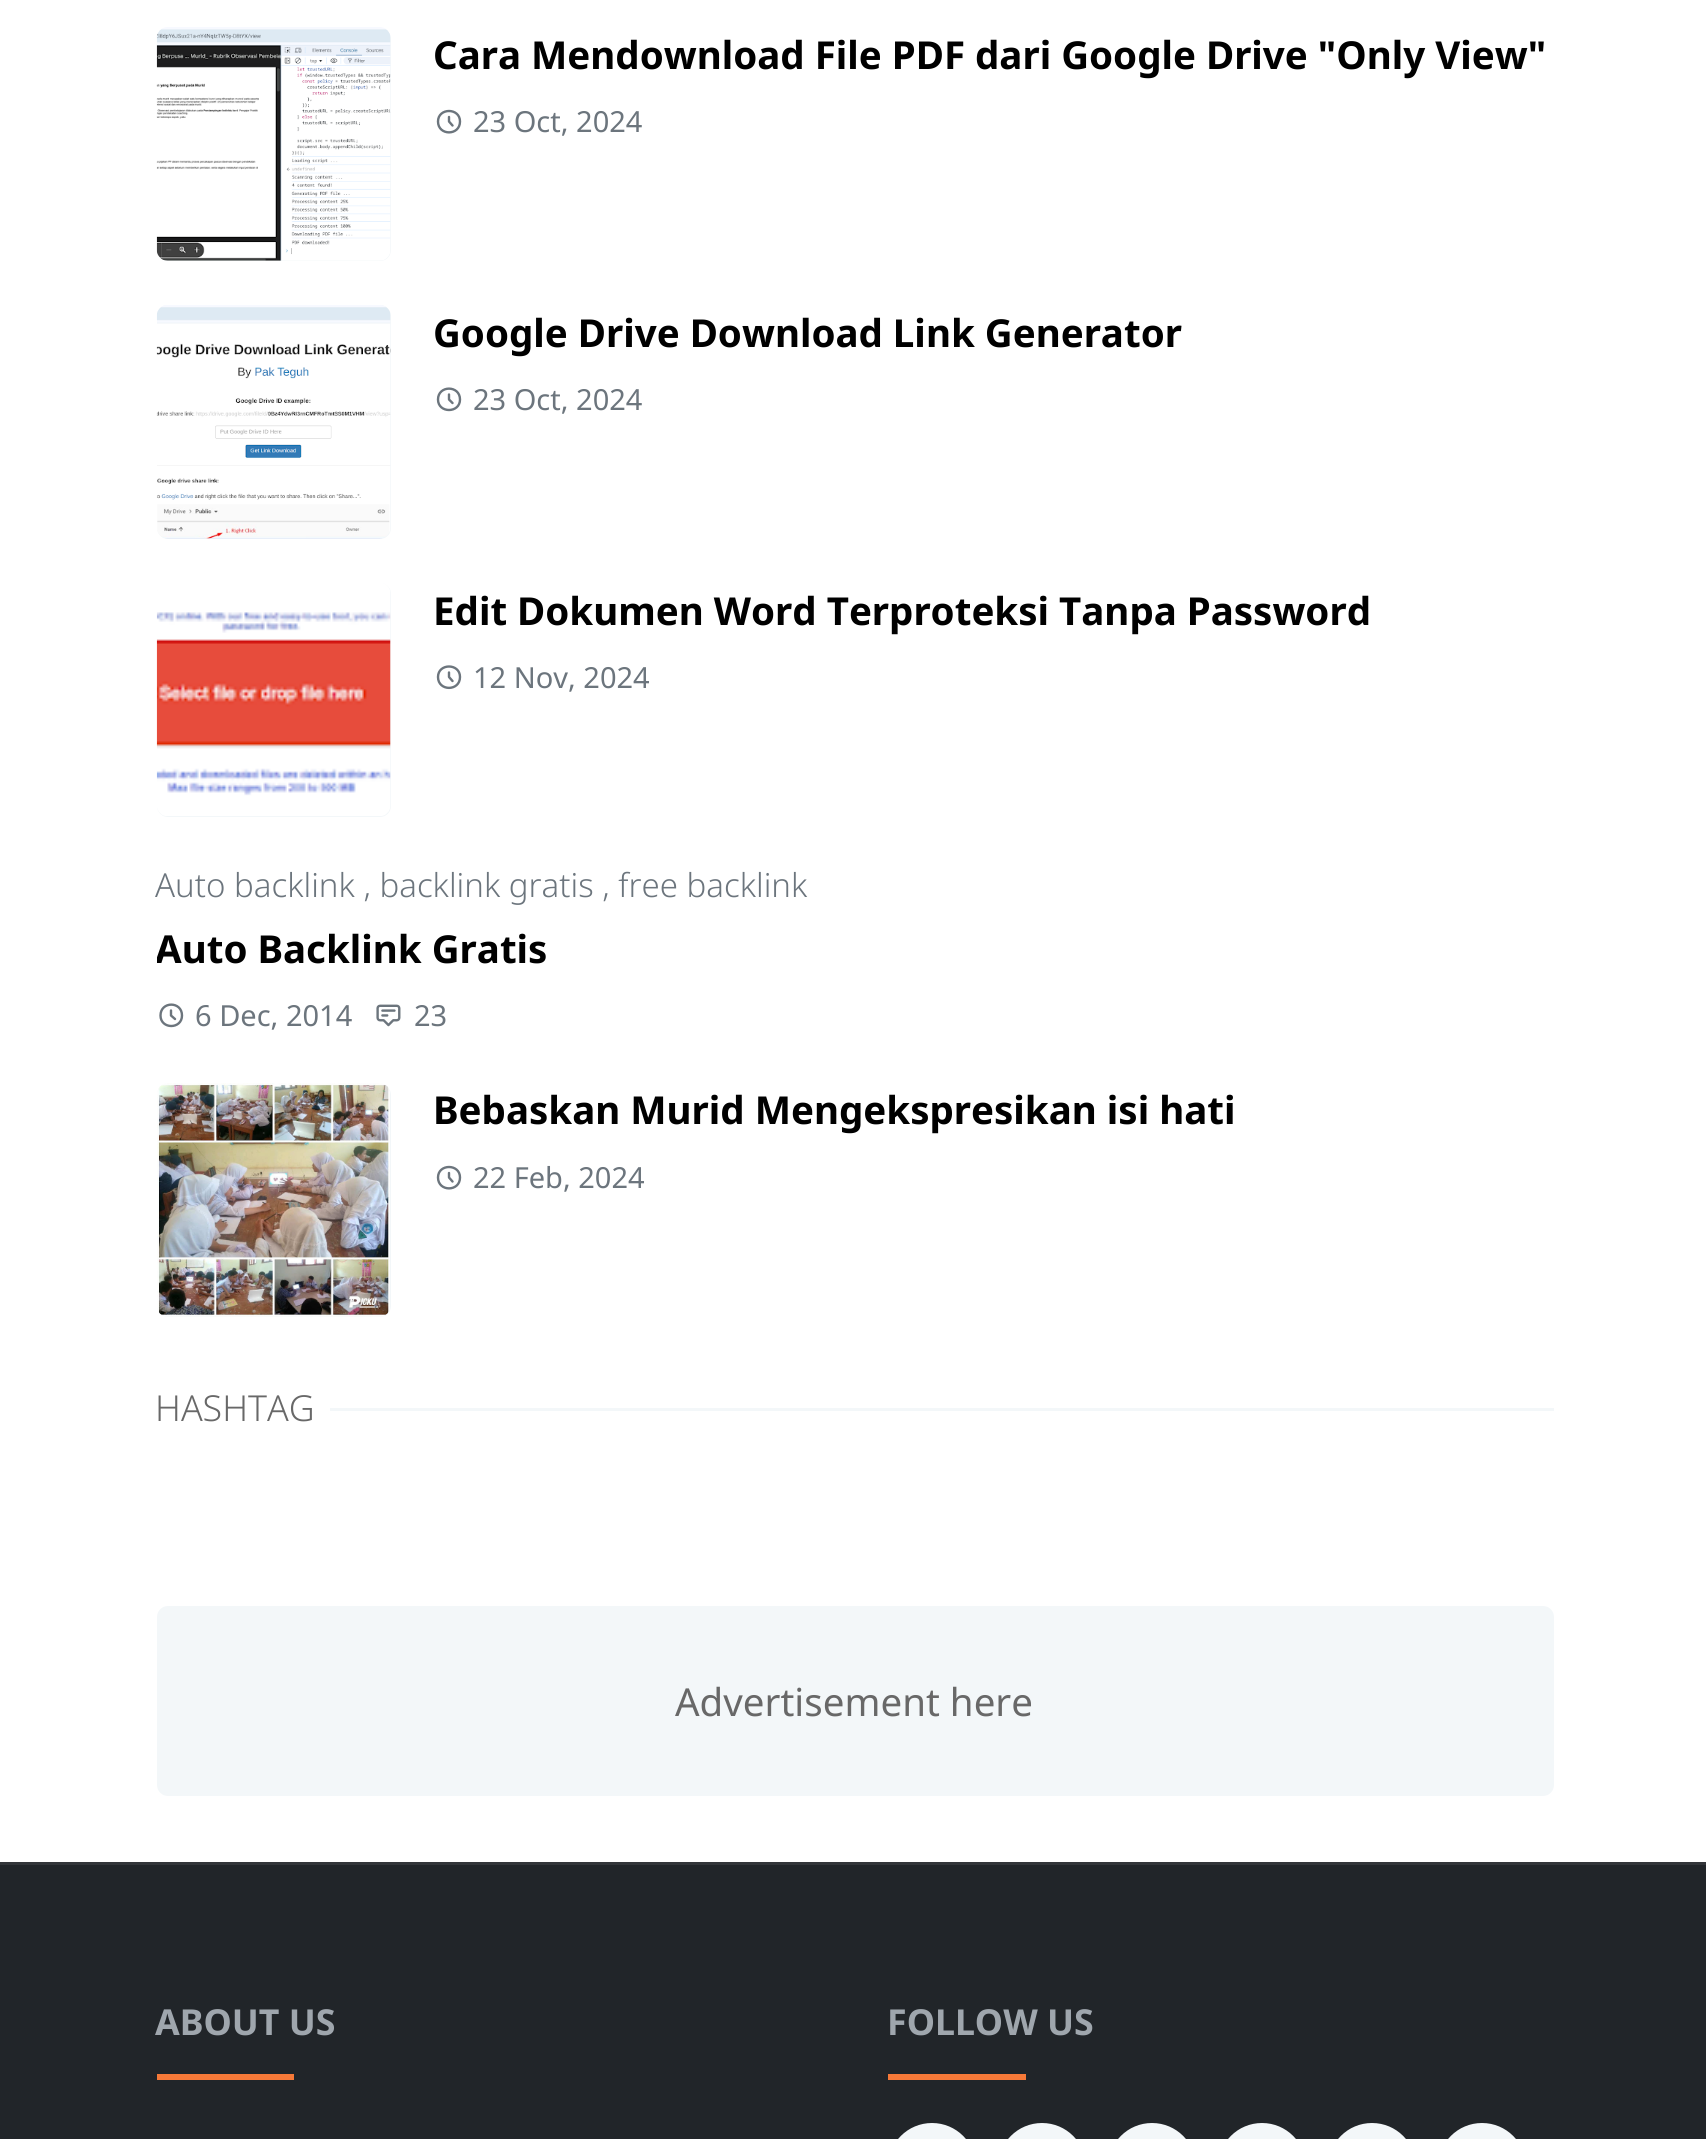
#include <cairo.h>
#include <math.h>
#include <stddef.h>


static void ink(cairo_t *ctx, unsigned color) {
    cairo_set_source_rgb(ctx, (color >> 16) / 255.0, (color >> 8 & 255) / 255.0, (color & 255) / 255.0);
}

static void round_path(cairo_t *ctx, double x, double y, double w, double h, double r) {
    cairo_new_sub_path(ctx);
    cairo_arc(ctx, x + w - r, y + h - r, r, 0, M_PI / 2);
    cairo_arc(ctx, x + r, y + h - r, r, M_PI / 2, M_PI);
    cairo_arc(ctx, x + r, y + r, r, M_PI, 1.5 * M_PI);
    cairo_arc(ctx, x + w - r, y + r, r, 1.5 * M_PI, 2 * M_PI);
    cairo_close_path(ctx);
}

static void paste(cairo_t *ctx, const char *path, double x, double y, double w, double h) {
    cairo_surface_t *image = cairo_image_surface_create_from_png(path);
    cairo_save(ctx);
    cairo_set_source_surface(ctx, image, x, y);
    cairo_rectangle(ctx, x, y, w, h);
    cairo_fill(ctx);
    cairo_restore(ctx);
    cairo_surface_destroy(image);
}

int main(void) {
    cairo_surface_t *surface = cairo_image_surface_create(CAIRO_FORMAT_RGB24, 1706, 2139);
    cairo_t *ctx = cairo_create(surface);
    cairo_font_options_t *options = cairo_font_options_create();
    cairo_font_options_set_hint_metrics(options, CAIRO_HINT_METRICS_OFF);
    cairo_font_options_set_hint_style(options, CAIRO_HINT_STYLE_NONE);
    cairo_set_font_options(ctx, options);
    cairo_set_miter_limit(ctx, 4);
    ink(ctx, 0xFFFFFF);
    cairo_paint(ctx);
    ink(ctx, 0xF3F7F9);
    round_path(ctx, 157, 28, 234, 233, 11);
    cairo_fill(ctx);
    paste(ctx, "media/1.png", 156, 27, 235, 234);
    cairo_select_font_face(ctx, "Noto Sans", CAIRO_FONT_SLANT_NORMAL, CAIRO_FONT_WEIGHT_BOLD);
    cairo_set_font_size(ctx, 38.5);
    ink(ctx, 0x000000);
    cairo_move_to(ctx, 433, 69);
    cairo_show_text(ctx, "Cara Mendownload File PDF dari Google Drive \"Only View\"");
    cairo_new_path(ctx);
    cairo_move_to(ctx, 449, 117);
    cairo_line_to(ctx, 449, 121.5);
    cairo_line_to(ctx, 452.5, 125.5);
    cairo_move_to(ctx, 460, 121.5);
    cairo_curve_to(ctx, 460, 136, 438, 136, 438, 121.5);
    cairo_curve_to(ctx, 438, 107.5, 460, 107.5, 460, 121.5);
    cairo_close_path(ctx);
    ink(ctx, 0x6C757D);
    cairo_set_line_width(ctx, 2.4);
    cairo_set_line_cap(ctx, CAIRO_LINE_CAP_ROUND);
    cairo_set_line_join(ctx, CAIRO_LINE_JOIN_ROUND);
    cairo_stroke(ctx);
    cairo_select_font_face(ctx, "Noto Sans", CAIRO_FONT_SLANT_NORMAL, CAIRO_FONT_WEIGHT_NORMAL);
    cairo_set_font_size(ctx, 29);
    cairo_move_to(ctx, 473, 132);
    cairo_show_text(ctx, "23 Oct, 2024");
    ink(ctx, 0xF3F7F9);
    round_path(ctx, 157, 305, 234, 234, 11);
    cairo_fill(ctx);
    paste(ctx, "media/2.png", 156, 305, 235, 234);
    cairo_select_font_face(ctx, "Noto Sans", CAIRO_FONT_SLANT_NORMAL, CAIRO_FONT_WEIGHT_BOLD);
    cairo_set_font_size(ctx, 38.5);
    ink(ctx, 0x000000);
    cairo_move_to(ctx, 433, 347);
    cairo_show_text(ctx, "Google Drive Download Link Generator");
    cairo_new_path(ctx);
    cairo_move_to(ctx, 449, 394.5);
    cairo_line_to(ctx, 449, 399.5);
    cairo_line_to(ctx, 452.5, 403);
    cairo_move_to(ctx, 460, 399.5);
    cairo_curve_to(ctx, 460, 413.5, 438, 413.5, 438, 399.5);
    cairo_curve_to(ctx, 438, 385, 460, 385, 460, 399.5);
    cairo_close_path(ctx);
    ink(ctx, 0x6C757D);
    cairo_stroke(ctx);
    cairo_select_font_face(ctx, "Noto Sans", CAIRO_FONT_SLANT_NORMAL, CAIRO_FONT_WEIGHT_NORMAL);
    cairo_set_font_size(ctx, 29);
    cairo_move_to(ctx, 473, 410);
    cairo_show_text(ctx, "23 Oct, 2024");
    ink(ctx, 0xF3F7F9);
    round_path(ctx, 157, 583, 234, 234, 11);
    cairo_fill(ctx);
    paste(ctx, "media/3.png", 156, 583, 235, 233);
    cairo_select_font_face(ctx, "Noto Sans", CAIRO_FONT_SLANT_NORMAL, CAIRO_FONT_WEIGHT_BOLD);
    cairo_set_font_size(ctx, 38.5);
    ink(ctx, 0x000000);
    cairo_move_to(ctx, 433, 625);
    cairo_show_text(ctx, "Edit Dokumen Word Terproteksi Tanpa Password");
    cairo_new_path(ctx);
    cairo_move_to(ctx, 449, 672.5);
    cairo_line_to(ctx, 449, 677);
    cairo_line_to(ctx, 452.5, 681);
    cairo_move_to(ctx, 460, 677);
    cairo_curve_to(ctx, 460, 691.5, 438, 691.5, 438, 677);
    cairo_curve_to(ctx, 438, 663, 460, 663, 460, 677);
    cairo_close_path(ctx);
    ink(ctx, 0x6C757D);
    cairo_stroke(ctx);
    cairo_select_font_face(ctx, "Noto Sans", CAIRO_FONT_SLANT_NORMAL, CAIRO_FONT_WEIGHT_NORMAL);
    cairo_set_font_size(ctx, 29);
    cairo_move_to(ctx, 473, 688);
    cairo_show_text(ctx, "12 Nov, 2024");
    cairo_select_font_face(ctx, "Noto Sans Light", CAIRO_FONT_SLANT_NORMAL, CAIRO_FONT_WEIGHT_NORMAL);
    cairo_set_font_size(ctx, 33);
    cairo_move_to(ctx, 155, 897);
    cairo_show_text(ctx, "Auto backlink , backlink gratis , free backlink");
    cairo_save(ctx);
    cairo_rectangle(ctx, 157, 921, 1397, 53);
    cairo_clip(ctx);
    cairo_select_font_face(ctx, "Noto Sans", CAIRO_FONT_SLANT_NORMAL, CAIRO_FONT_WEIGHT_BOLD);
    cairo_set_font_size(ctx, 38.5);
    ink(ctx, 0x000000);
    cairo_move_to(ctx, 155, 963);
    cairo_show_text(ctx, "Auto Backlink Gratis");
    cairo_restore(ctx);
    cairo_new_path(ctx);
    cairo_move_to(ctx, 171, 1010.5);
    cairo_line_to(ctx, 171, 1015.5);
    cairo_line_to(ctx, 175, 1019);
    cairo_move_to(ctx, 182, 1015.5);
    cairo_curve_to(ctx, 182, 1029.5, 160.5, 1029.5, 160.5, 1015.5);
    cairo_curve_to(ctx, 160.5, 1001, 182, 1001, 182, 1015.5);
    cairo_close_path(ctx);
    cairo_stroke(ctx);
    cairo_select_font_face(ctx, "Noto Sans", CAIRO_FONT_SLANT_NORMAL, CAIRO_FONT_WEIGHT_NORMAL);
    cairo_set_font_size(ctx, 29);
    cairo_move_to(ctx, 195, 1026);
    cairo_show_text(ctx, "6 Dec, 2014");
    paste(ctx, "media/4.png", 376, 1004, 25, 23);
    cairo_move_to(ctx, 414, 1026);
    cairo_show_text(ctx, "23");
    ink(ctx, 0xF3F7F9);
    round_path(ctx, 157, 1084, 234, 233, 11);
    cairo_fill(ctx);
    paste(ctx, "media/5.png", 157, 1083, 233, 234);
    cairo_select_font_face(ctx, "Noto Sans", CAIRO_FONT_SLANT_NORMAL, CAIRO_FONT_WEIGHT_BOLD);
    cairo_set_font_size(ctx, 38.5);
    ink(ctx, 0x000000);
    cairo_move_to(ctx, 433, 1124);
    cairo_show_text(ctx, "Bebaskan Murid Mengekspresikan isi hati");
    cairo_new_path(ctx);
    cairo_move_to(ctx, 449, 1173);
    cairo_line_to(ctx, 449, 1177.5);
    cairo_line_to(ctx, 452.5, 1181.5);
    cairo_move_to(ctx, 460, 1177.5);
    cairo_curve_to(ctx, 460, 1192, 438, 1192, 438, 1177.5);
    cairo_curve_to(ctx, 438, 1163.5, 460, 1163.5, 460, 1177.5);
    cairo_close_path(ctx);
    ink(ctx, 0x6C757D);
    cairo_stroke(ctx);
    cairo_select_font_face(ctx, "Noto Sans", CAIRO_FONT_SLANT_NORMAL, CAIRO_FONT_WEIGHT_NORMAL);
    cairo_set_font_size(ctx, 29);
    cairo_move_to(ctx, 473, 1188);
    cairo_show_text(ctx, "22 Feb, 2024");
    cairo_select_font_face(ctx, "Noto Sans Light", CAIRO_FONT_SLANT_NORMAL, CAIRO_FONT_WEIGHT_NORMAL);
    cairo_set_font_size(ctx, 35.75);
    ink(ctx, 0x686868);
    cairo_move_to(ctx, 155, 1421);
    cairo_show_text(ctx, "HASHTAG");
    ink(ctx, 0xF3F7F9);
    cairo_rectangle(ctx, 330, 1408, 1224, 3);
    cairo_fill(ctx);
    round_path(ctx, 157, 1606, 1397, 190, 11);
    cairo_fill(ctx);
    cairo_select_font_face(ctx, "Noto Sans", CAIRO_FONT_SLANT_NORMAL, CAIRO_FONT_WEIGHT_NORMAL);
    cairo_set_font_size(ctx, 38.5);
    ink(ctx, 0x686868);
    cairo_move_to(ctx, 675, 1716);
    cairo_show_text(ctx, "Advertisement here");
    ink(ctx, 0x212529);
    cairo_rectangle(ctx, 0, 1865, 1706, 274);
    cairo_fill(ctx);
    ink(ctx, 0x323539);
    cairo_rectangle(ctx, 0, 1862, 1706, 3);
    cairo_fill(ctx);
    cairo_select_font_face(ctx, "Noto Sans", CAIRO_FONT_SLANT_NORMAL, CAIRO_FONT_WEIGHT_BOLD);
    cairo_set_font_size(ctx, 35.75);
    ink(ctx, 0x9FA6AD);
    cairo_move_to(ctx, 155, 2035);
    cairo_show_text(ctx, "ABOUT US");
    ink(ctx, 0xF67938);
    cairo_rectangle(ctx, 157, 2074, 137, 6);
    cairo_fill(ctx);
    ink(ctx, 0x9FA6AD);
    cairo_move_to(ctx, 887, 2035);
    cairo_show_text(ctx, "FOLLOW US");
    ink(ctx, 0xF67938);
    cairo_rectangle(ctx, 888, 2074, 138, 6);
    cairo_fill(ctx);
    ink(ctx, 0xF3F7F9);
    round_path(ctx, 889.5, 2124.5, 85, 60, 42.5);
    cairo_fill_preserve(ctx);
    cairo_set_line_width(ctx, 3);
    cairo_set_line_cap(ctx, CAIRO_LINE_CAP_BUTT);
    cairo_set_line_join(ctx, CAIRO_LINE_JOIN_MITER);
    cairo_stroke(ctx);
    round_path(ctx, 999.5, 2124.5, 85, 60, 42.5);
    cairo_fill_preserve(ctx);
    cairo_stroke(ctx);
    round_path(ctx, 1109.5, 2124.5, 85, 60, 42.5);
    cairo_fill_preserve(ctx);
    cairo_stroke(ctx);
    round_path(ctx, 1219.5, 2124.5, 85, 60, 42.5);
    cairo_fill_preserve(ctx);
    cairo_stroke(ctx);
    round_path(ctx, 1329.5, 2124.5, 85, 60, 42.5);
    cairo_fill_preserve(ctx);
    cairo_stroke(ctx);
    round_path(ctx, 1439.5, 2124.5, 85, 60, 42.5);
    cairo_fill_preserve(ctx);
    cairo_stroke(ctx);
    cairo_surface_write_to_png(surface, "image.png");
    cairo_font_options_destroy(options);
    cairo_destroy(ctx);
    cairo_surface_destroy(surface);
    return 0;
}
